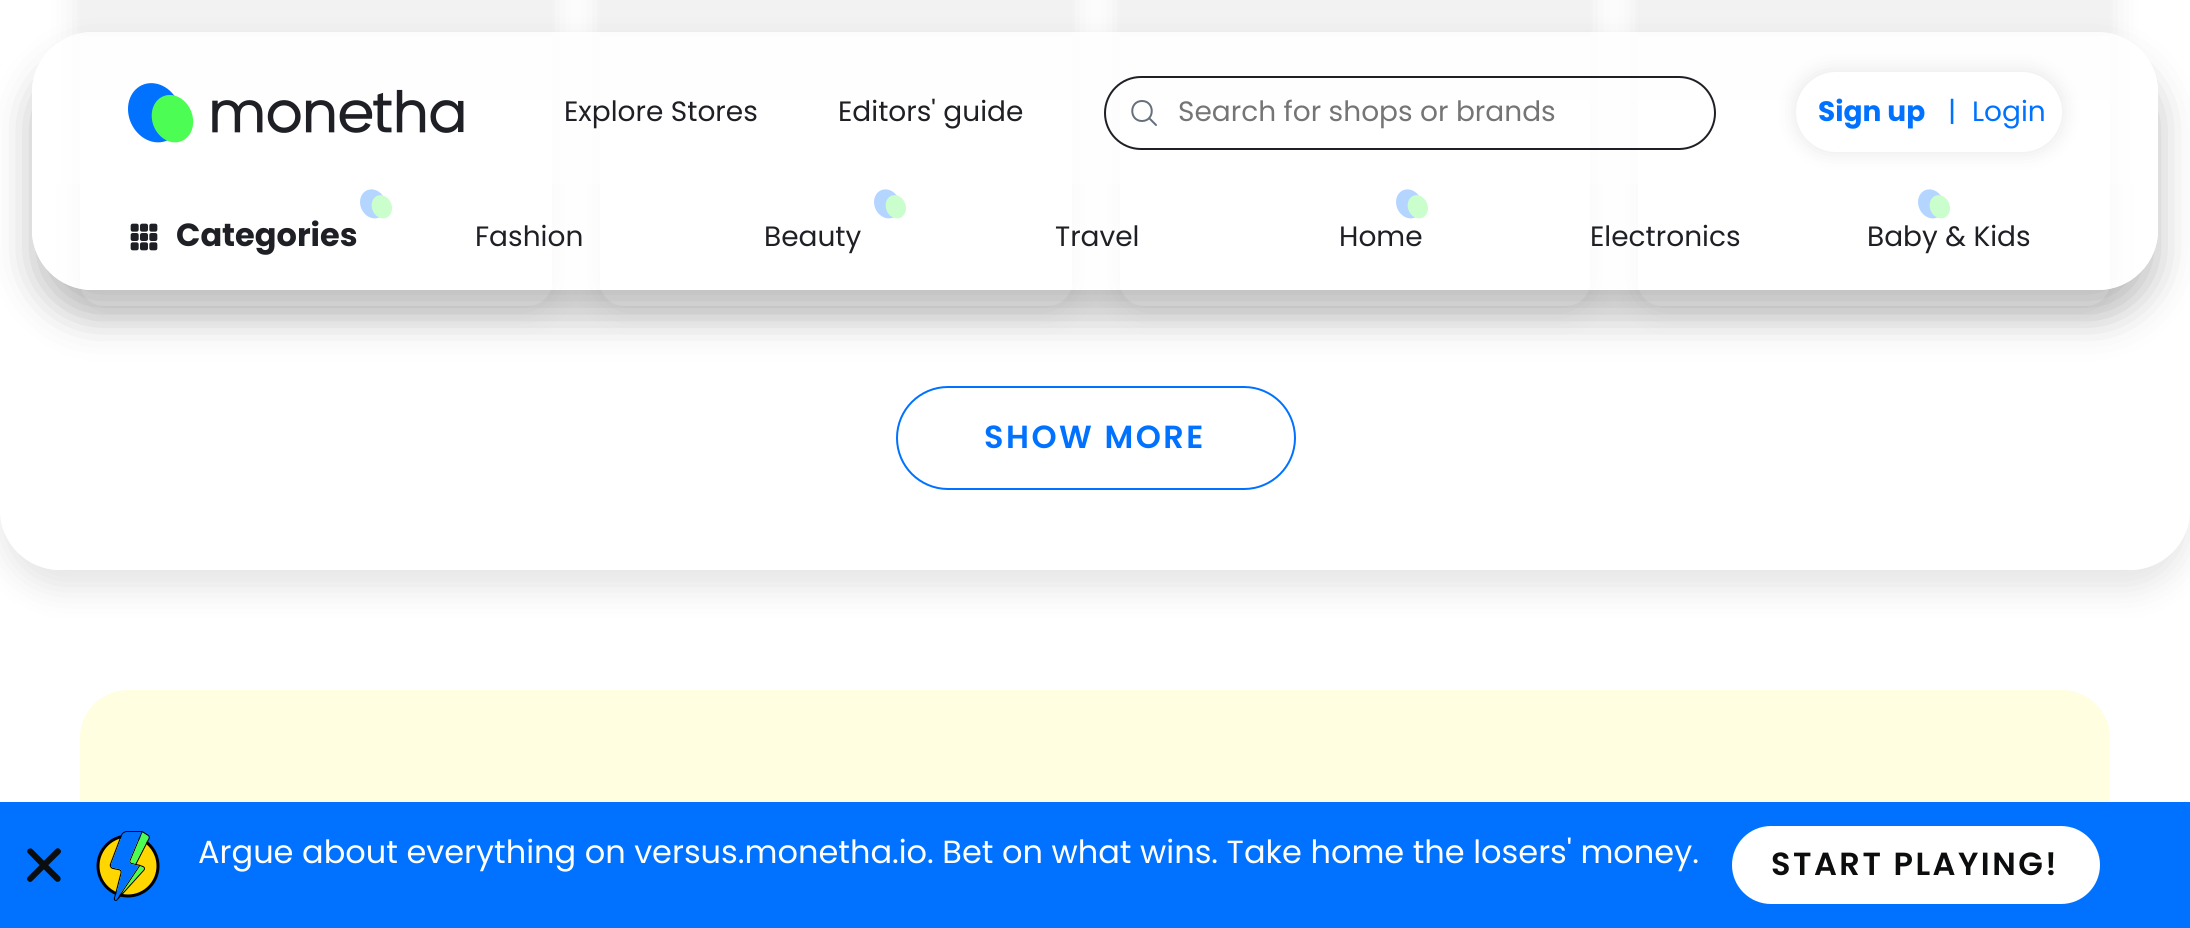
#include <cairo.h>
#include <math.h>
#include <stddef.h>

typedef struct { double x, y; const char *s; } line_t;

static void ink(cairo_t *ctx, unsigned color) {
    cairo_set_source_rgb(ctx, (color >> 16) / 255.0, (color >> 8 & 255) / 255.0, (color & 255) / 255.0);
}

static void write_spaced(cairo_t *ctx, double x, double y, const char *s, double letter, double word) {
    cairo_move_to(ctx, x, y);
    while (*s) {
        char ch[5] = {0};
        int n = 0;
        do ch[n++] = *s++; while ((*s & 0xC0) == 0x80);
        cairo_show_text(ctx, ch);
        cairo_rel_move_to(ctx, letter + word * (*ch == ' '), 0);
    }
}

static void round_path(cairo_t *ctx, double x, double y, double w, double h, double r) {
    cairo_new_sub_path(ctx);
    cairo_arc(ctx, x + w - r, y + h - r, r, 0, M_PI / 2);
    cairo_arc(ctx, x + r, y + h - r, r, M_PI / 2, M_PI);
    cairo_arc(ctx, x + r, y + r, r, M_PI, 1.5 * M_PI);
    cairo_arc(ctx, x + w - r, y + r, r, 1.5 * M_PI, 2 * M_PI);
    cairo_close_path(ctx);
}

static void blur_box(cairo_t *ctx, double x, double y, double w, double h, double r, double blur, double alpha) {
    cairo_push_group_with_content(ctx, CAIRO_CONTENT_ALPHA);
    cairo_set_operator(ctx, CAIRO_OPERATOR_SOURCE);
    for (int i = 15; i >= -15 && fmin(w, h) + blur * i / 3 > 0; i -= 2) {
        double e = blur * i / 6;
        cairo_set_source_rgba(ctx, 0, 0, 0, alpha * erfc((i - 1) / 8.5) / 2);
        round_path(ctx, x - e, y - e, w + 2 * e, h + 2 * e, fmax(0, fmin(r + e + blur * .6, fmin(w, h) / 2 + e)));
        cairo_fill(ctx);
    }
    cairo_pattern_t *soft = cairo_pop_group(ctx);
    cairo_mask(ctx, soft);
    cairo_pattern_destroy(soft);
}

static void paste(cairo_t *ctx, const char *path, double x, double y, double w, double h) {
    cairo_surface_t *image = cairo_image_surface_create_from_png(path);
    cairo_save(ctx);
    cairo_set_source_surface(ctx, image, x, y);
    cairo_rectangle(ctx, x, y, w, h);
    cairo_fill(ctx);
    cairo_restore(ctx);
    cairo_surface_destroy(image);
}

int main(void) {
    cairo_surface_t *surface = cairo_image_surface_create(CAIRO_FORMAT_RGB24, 2190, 928);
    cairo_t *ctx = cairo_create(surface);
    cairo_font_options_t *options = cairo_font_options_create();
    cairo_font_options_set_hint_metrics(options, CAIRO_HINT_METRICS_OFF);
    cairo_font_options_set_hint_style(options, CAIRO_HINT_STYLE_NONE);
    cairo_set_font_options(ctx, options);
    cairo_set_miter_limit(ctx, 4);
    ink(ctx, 0xFFFFFF);
    cairo_paint(ctx);
    cairo_save(ctx);
    cairo_set_fill_rule(ctx, CAIRO_FILL_RULE_EVEN_ODD);
    cairo_new_path(ctx);
    cairo_move_to(ctx, 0, 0);
    cairo_line_to(ctx, 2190, 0);
    cairo_line_to(ctx, 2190, 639);
    cairo_line_to(ctx, 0, 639);
    cairo_close_path(ctx);
    cairo_move_to(ctx, 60, -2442);
    cairo_line_to(ctx, 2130, -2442);
    cairo_curve_to(ctx, 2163, -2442, 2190, -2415, 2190, -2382);
    cairo_line_to(ctx, 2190, 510);
    cairo_curve_to(ctx, 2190, 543, 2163, 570, 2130, 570);
    cairo_line_to(ctx, 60, 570);
    cairo_curve_to(ctx, 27, 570, 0, 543, 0, 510);
    cairo_line_to(ctx, 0, -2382);
    cairo_curve_to(ctx, 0, -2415, 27, -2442, 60, -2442);
    cairo_close_path(ctx);
    cairo_clip(ctx);
    ink(ctx, 0x000000);
    blur_box(ctx, 0, -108, 2190, 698, 60, 16, 0.1);
    cairo_restore(ctx);
    cairo_set_source_rgba(ctx, 1, 1, 1, 0.5);
    round_path(ctx, 0, -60, 2190, 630, 60);
    cairo_fill(ctx);
    ink(ctx, 0x000000);
    blur_box(ctx, 80, -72, 472, 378, 24, 16, 0.1);
    ink(ctx, 0xFFFFFF);
    round_path(ctx, 80, -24, 472, 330, 24);
    cairo_fill(ctx);
    ink(ctx, 0xF2F2F2);
    cairo_rectangle(ctx, 80, 0, 472, 36);
    cairo_fill(ctx);
    ink(ctx, 0xF9F9F9);
    cairo_rectangle(ctx, 80, 36, 472, 64);
    cairo_fill(ctx);
    paste(ctx, "media/3.png", 360, 189, 32, 30);
    ink(ctx, 0x000000);
    blur_box(ctx, 600, -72, 472, 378, 24, 16, 0.1);
    ink(ctx, 0xFFFFFF);
    round_path(ctx, 600, -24, 472, 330, 24);
    cairo_fill(ctx);
    ink(ctx, 0xF2F2F2);
    cairo_rectangle(ctx, 600, 0, 472, 36);
    cairo_fill(ctx);
    ink(ctx, 0xF9F9F9);
    cairo_rectangle(ctx, 600, 36, 472, 64);
    cairo_fill(ctx);
    paste(ctx, "media/3.png", 874, 189, 32, 30);
    ink(ctx, 0x000000);
    blur_box(ctx, 1120, -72, 470, 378, 24, 16, 0.1);
    ink(ctx, 0xFFFFFF);
    round_path(ctx, 1120, -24, 470, 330, 24);
    cairo_fill(ctx);
    ink(ctx, 0xF2F2F2);
    cairo_rectangle(ctx, 1120, 0, 470, 36);
    cairo_fill(ctx);
    ink(ctx, 0xF9F9F9);
    cairo_rectangle(ctx, 1120, 36, 470, 64);
    cairo_fill(ctx);
    paste(ctx, "media/3.png", 1396, 189, 32, 30);
    ink(ctx, 0x000000);
    blur_box(ctx, 1638, -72, 472, 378, 24, 16, 0.1);
    ink(ctx, 0xFFFFFF);
    round_path(ctx, 1638, -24, 472, 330, 24);
    cairo_fill(ctx);
    ink(ctx, 0xF2F2F2);
    cairo_rectangle(ctx, 1638, 0, 472, 36);
    cairo_fill(ctx);
    ink(ctx, 0xF9F9F9);
    cairo_rectangle(ctx, 1638, 36, 472, 64);
    cairo_fill(ctx);
    paste(ctx, "media/3.png", 1918, 189, 32, 30);
    cairo_save(ctx);
    cairo_set_fill_rule(ctx, CAIRO_FILL_RULE_EVEN_ODD);
    cairo_new_path(ctx);
    cairo_move_to(ctx, 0, 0);
    cairo_line_to(ctx, 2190, 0);
    cairo_line_to(ctx, 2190, 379);
    cairo_line_to(ctx, 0, 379);
    cairo_close_path(ctx);
    cairo_move_to(ctx, 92, 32);
    cairo_line_to(ctx, 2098, 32);
    cairo_curve_to(ctx, 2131, 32, 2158, 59, 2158, 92);
    cairo_line_to(ctx, 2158, 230);
    cairo_curve_to(ctx, 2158, 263, 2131, 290, 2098, 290);
    cairo_line_to(ctx, 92, 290);
    cairo_curve_to(ctx, 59, 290, 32, 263, 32, 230);
    cairo_line_to(ctx, 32, 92);
    cairo_curve_to(ctx, 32, 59, 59, 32, 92, 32);
    cairo_close_path(ctx);
    cairo_clip(ctx);
    ink(ctx, 0x000000);
    blur_box(ctx, 32, 60, 2126, 258, 60, 20, 0.25);
    cairo_restore(ctx);
    cairo_set_source_rgba(ctx, 1, 1, 1, 0.8);
    cairo_new_path(ctx);
    cairo_move_to(ctx, 92, 32);
    cairo_line_to(ctx, 2098, 32);
    cairo_curve_to(ctx, 2131, 32, 2158, 59, 2158, 92);
    cairo_line_to(ctx, 2158, 184);
    cairo_line_to(ctx, 32, 184);
    cairo_line_to(ctx, 32, 92);
    cairo_curve_to(ctx, 32, 59, 59, 32, 92, 32);
    cairo_close_path(ctx);
    cairo_fill(ctx);
    paste(ctx, "media/1.png", 128, 83, 336, 60);
    cairo_select_font_face(ctx, "Poppins", CAIRO_FONT_SLANT_NORMAL, CAIRO_FONT_WEIGHT_NORMAL);
    cairo_set_font_size(ctx, 28);
    ink(ctx, 0x1F2025);
    cairo_move_to(ctx, 564, 121);
    cairo_show_text(ctx, "Explore Stores");
    cairo_move_to(ctx, 838, 121);
    cairo_show_text(ctx, "Editors' guide");
    round_path(ctx, 1105, 77, 610, 72, 36);
    cairo_stroke(ctx);
    cairo_new_path(ctx);
    cairo_move_to(ctx, 1142, 121);
    cairo_curve_to(ctx, 1155, 121, 1155, 101, 1142, 101);
    cairo_curve_to(ctx, 1129, 101, 1129, 121, 1142, 121);
    cairo_close_path(ctx);
    cairo_move_to(ctx, 1156, 125);
    cairo_line_to(ctx, 1149, 118);
    ink(ctx, 0x65707C);
    cairo_set_line_cap(ctx, CAIRO_LINE_CAP_ROUND);
    cairo_set_line_join(ctx, CAIRO_LINE_JOIN_ROUND);
    cairo_stroke(ctx);
    ink(ctx, 0x757575);
    cairo_move_to(ctx, 1178, 121);
    cairo_show_text(ctx, "Search for shops or brands");
    ink(ctx, 0x000000);
    blur_box(ctx, 1796, 72, 266, 80, 40, 10, 0.1);
    ink(ctx, 0xFFFFFF);
    round_path(ctx, 1796, 72, 266, 80, 40);
    cairo_fill(ctx);
    cairo_select_font_face(ctx, "Poppins", CAIRO_FONT_SLANT_NORMAL, CAIRO_FONT_WEIGHT_BOLD);
    ink(ctx, 0x0072FF);
    cairo_move_to(ctx, 1818, 121);
    cairo_show_text(ctx, "Sign up");
    cairo_select_font_face(ctx, "Poppins", CAIRO_FONT_SLANT_NORMAL, CAIRO_FONT_WEIGHT_NORMAL);
    cairo_move_to(ctx, 1948, 121);
    cairo_show_text(ctx, "|");
    cairo_move_to(ctx, 1972, 121);
    cairo_show_text(ctx, "Login");
    cairo_set_source_rgba(ctx, 1, 1, 1, 0.7);
    cairo_new_path(ctx);
    cairo_move_to(ctx, 32, 184);
    cairo_line_to(ctx, 2158, 184);
    cairo_line_to(ctx, 2158, 230);
    cairo_curve_to(ctx, 2158, 263, 2131, 290, 2098, 290);
    cairo_line_to(ctx, 92, 290);
    cairo_curve_to(ctx, 59, 290, 32, 263, 32, 230);
    cairo_close_path(ctx);
    cairo_fill(ctx);
    paste(ctx, "media/2.png", 130, 223, 28, 28);
    cairo_select_font_face(ctx, "Poppins", CAIRO_FONT_SLANT_NORMAL, CAIRO_FONT_WEIGHT_BOLD);
    cairo_set_font_size(ctx, 32);
    ink(ctx, 0x1F2025);
    cairo_move_to(ctx, 176, 246);
    cairo_show_text(ctx, "Categories");
    cairo_select_font_face(ctx, "Poppins", CAIRO_FONT_SLANT_NORMAL, CAIRO_FONT_WEIGHT_NORMAL);
    cairo_set_font_size(ctx, 28);
    {
        static const line_t items[] = {
            {475, 246, "Fashion"},
            {764, 246, "Beauty"},
            {1055, 246, "Travel"},
            {1339, 246, "Home"},
            {1590, 246, "Electronics"},
            {1867, 246, "Baby & Kids"},
        };
        for (size_t i = 0; i < sizeof items / sizeof *items; i++) {
            cairo_move_to(ctx, items[i].x, items[i].y);
            cairo_show_text(ctx, items[i].s);
        }
    }
    round_path(ctx, 897, 387, 398, 102, 51);
    ink(ctx, 0x0072FF);
    cairo_set_line_cap(ctx, CAIRO_LINE_CAP_BUTT);
    cairo_set_line_join(ctx, CAIRO_LINE_JOIN_MITER);
    cairo_stroke(ctx);
    cairo_select_font_face(ctx, "Poppins SemiBold", CAIRO_FONT_SLANT_NORMAL, CAIRO_FONT_WEIGHT_NORMAL);
    cairo_set_font_size(ctx, 32);
    write_spaced(ctx, 984, 448, "SHOW MORE", 2.5, 0);
    ink(ctx, 0xFFFEE0);
    round_path(ctx, 80, 690, 2030, 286, 48);
    cairo_fill(ctx);
    ink(ctx, 0x0072FF);
    cairo_rectangle(ctx, 0, 802, 2190, 126);
    cairo_fill(ctx);
    paste(ctx, "media/4.png", 27, 848, 34, 34);
    paste(ctx, "media/5.png", 96, 831, 64, 70);
    cairo_select_font_face(ctx, "Poppins", CAIRO_FONT_SLANT_NORMAL, CAIRO_FONT_WEIGHT_NORMAL);
    ink(ctx, 0xFFFFFF);
    cairo_move_to(ctx, 198, 863);
    cairo_show_text(ctx, "Argue about everything on versus.monetha.io. Bet on what wins. Take home the losers' money.");
    round_path(ctx, 1732, 826, 368, 78, 39);
    cairo_fill(ctx);
    cairo_select_font_face(ctx, "Poppins SemiBold", CAIRO_FONT_SLANT_NORMAL, CAIRO_FONT_WEIGHT_NORMAL);
    ink(ctx, 0x0C0D0E);
    write_spaced(ctx, 1771, 875, "START PLAYING!", 2.5, 0);
    cairo_surface_write_to_png(surface, "image.png");
    cairo_font_options_destroy(options);
    cairo_destroy(ctx);
    cairo_surface_destroy(surface);
    return 0;
}
